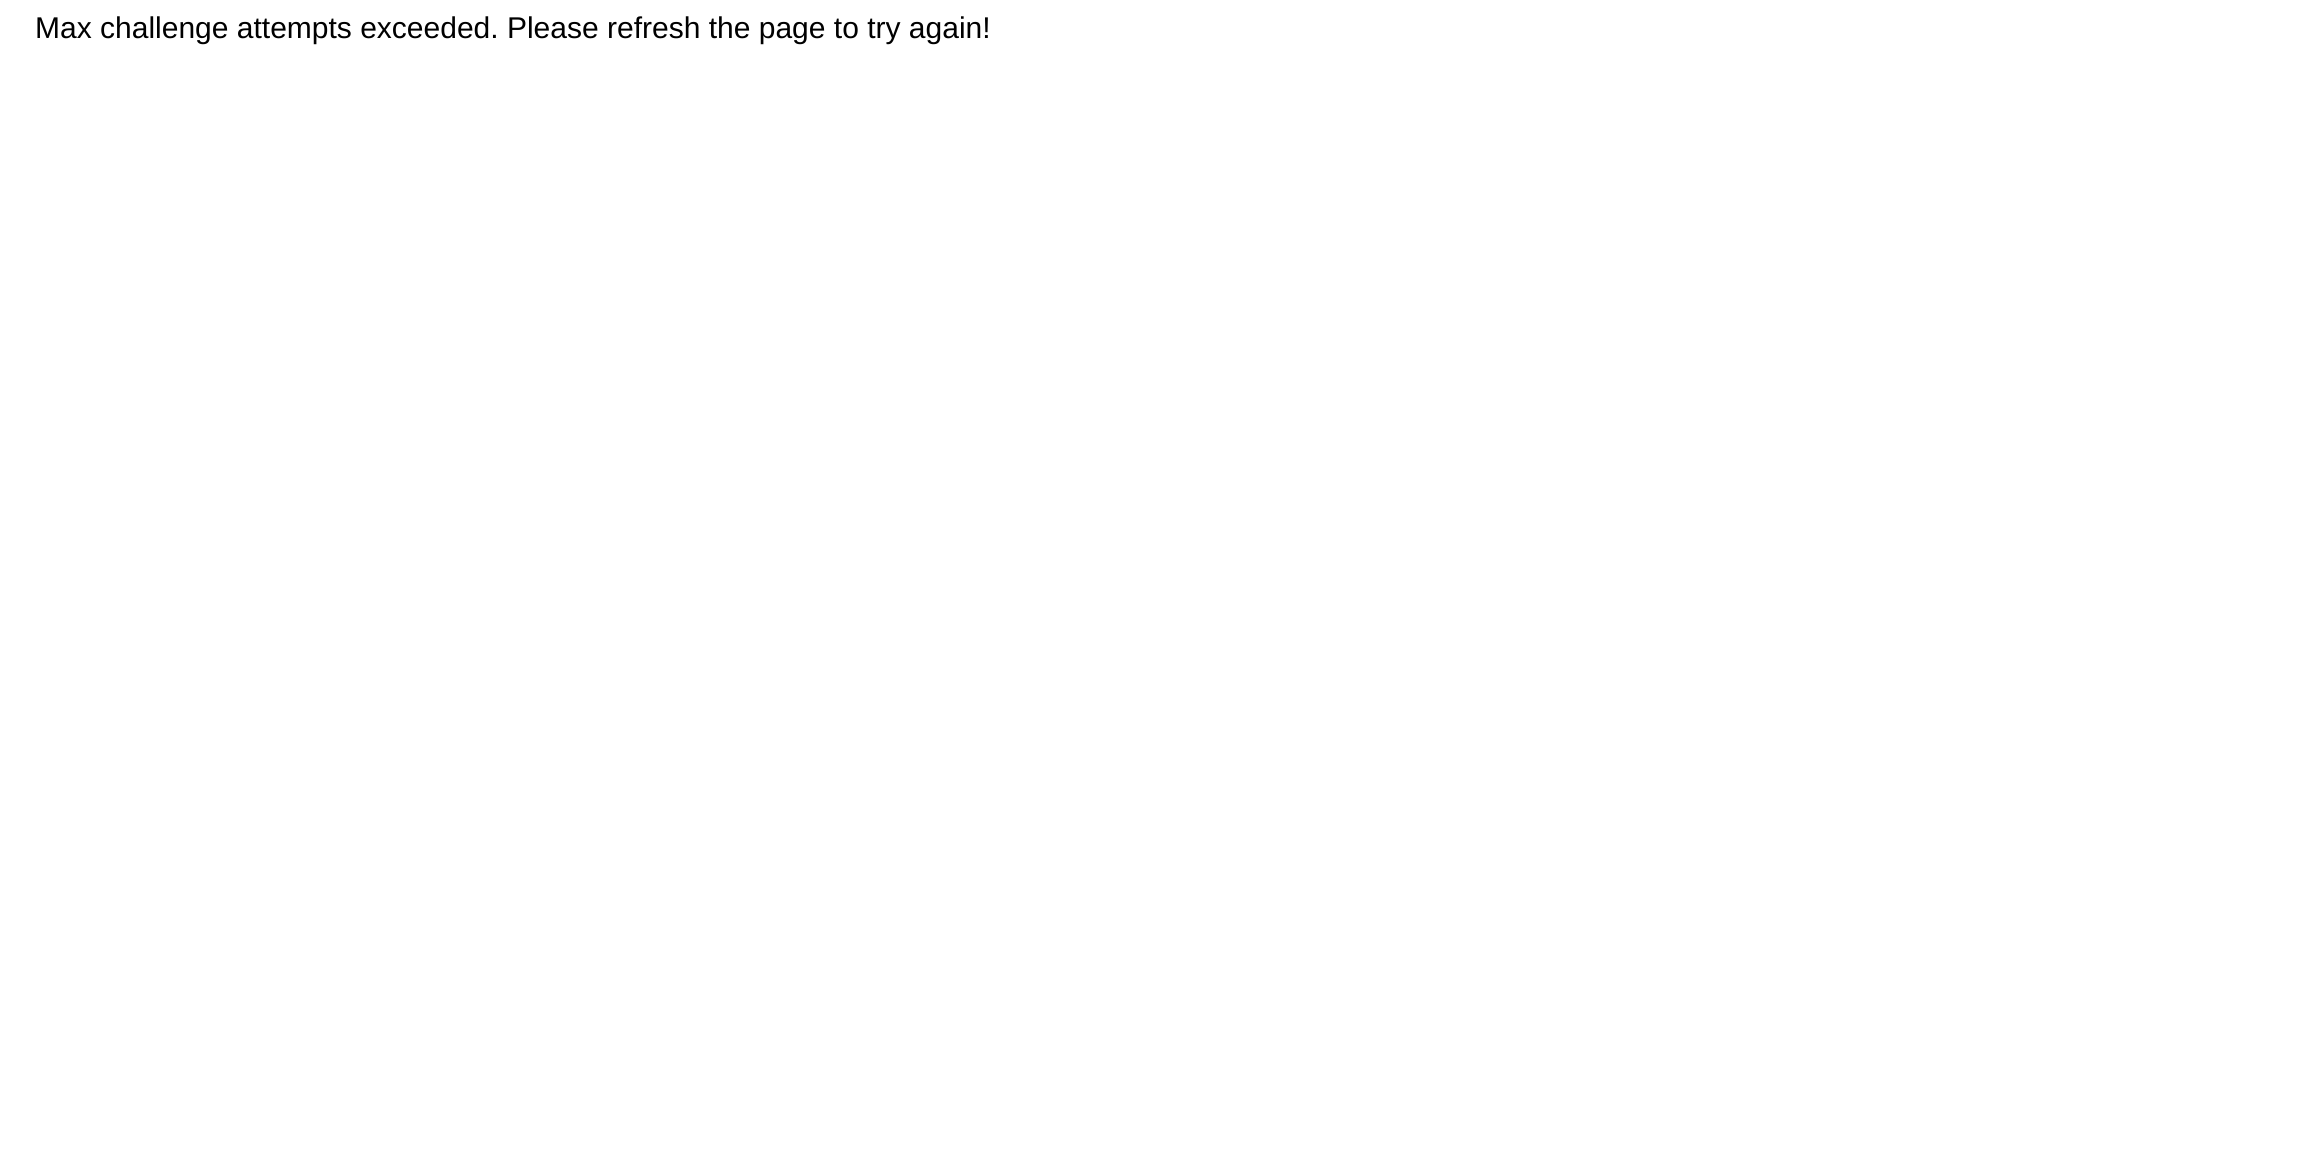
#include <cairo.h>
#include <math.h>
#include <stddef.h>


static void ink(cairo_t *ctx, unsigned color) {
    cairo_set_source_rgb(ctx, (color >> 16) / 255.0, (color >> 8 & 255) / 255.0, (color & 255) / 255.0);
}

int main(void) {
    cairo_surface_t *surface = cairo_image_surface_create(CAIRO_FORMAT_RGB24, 2302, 1157);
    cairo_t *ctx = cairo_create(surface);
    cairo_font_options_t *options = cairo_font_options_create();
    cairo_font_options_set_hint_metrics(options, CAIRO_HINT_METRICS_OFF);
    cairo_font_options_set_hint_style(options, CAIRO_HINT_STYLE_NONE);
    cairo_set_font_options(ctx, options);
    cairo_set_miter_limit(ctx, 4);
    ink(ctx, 0xFFFFFF);
    cairo_paint(ctx);
    cairo_select_font_face(ctx, "Liberation Sans", CAIRO_FONT_SLANT_NORMAL, CAIRO_FONT_WEIGHT_NORMAL);
    cairo_set_font_size(ctx, 30);
    ink(ctx, 0x000000);
    cairo_move_to(ctx, 35, 38);
    cairo_show_text(ctx, "Max challenge attempts exceeded. Please refresh the page to try again!");
    cairo_surface_write_to_png(surface, "image.png");
    cairo_font_options_destroy(options);
    cairo_destroy(ctx);
    cairo_surface_destroy(surface);
    return 0;
}
